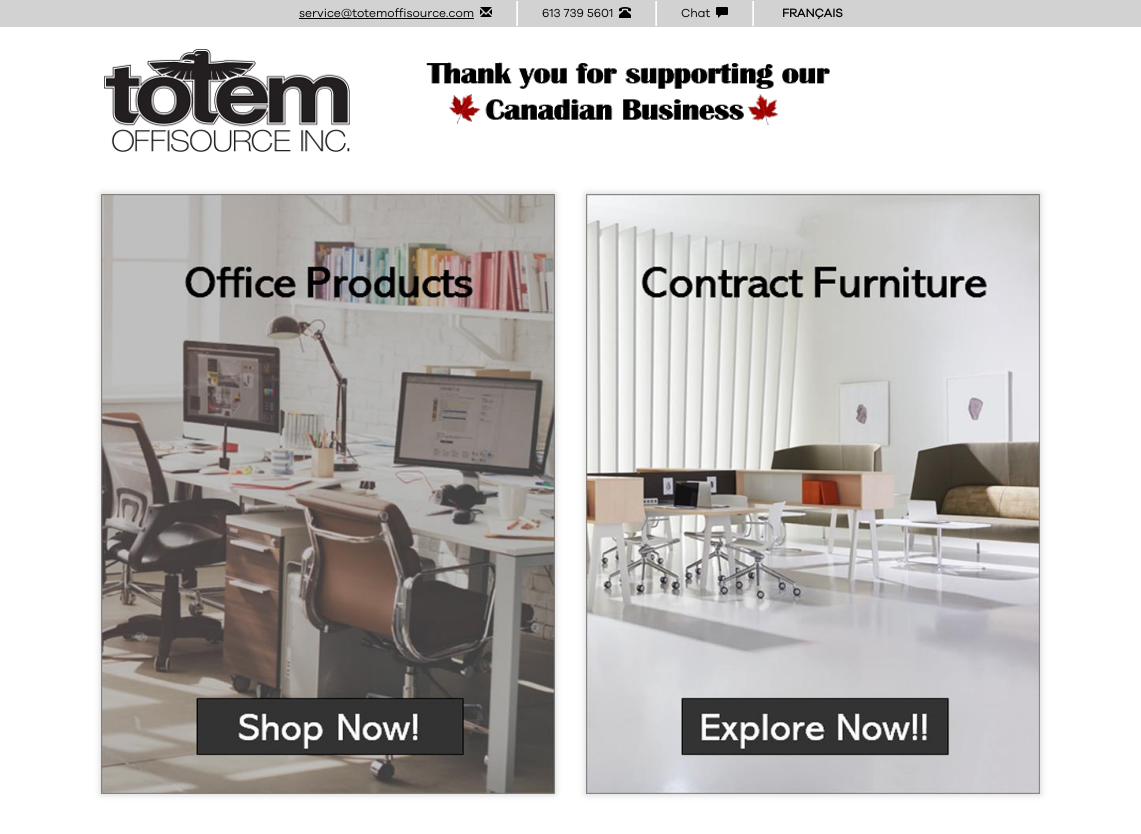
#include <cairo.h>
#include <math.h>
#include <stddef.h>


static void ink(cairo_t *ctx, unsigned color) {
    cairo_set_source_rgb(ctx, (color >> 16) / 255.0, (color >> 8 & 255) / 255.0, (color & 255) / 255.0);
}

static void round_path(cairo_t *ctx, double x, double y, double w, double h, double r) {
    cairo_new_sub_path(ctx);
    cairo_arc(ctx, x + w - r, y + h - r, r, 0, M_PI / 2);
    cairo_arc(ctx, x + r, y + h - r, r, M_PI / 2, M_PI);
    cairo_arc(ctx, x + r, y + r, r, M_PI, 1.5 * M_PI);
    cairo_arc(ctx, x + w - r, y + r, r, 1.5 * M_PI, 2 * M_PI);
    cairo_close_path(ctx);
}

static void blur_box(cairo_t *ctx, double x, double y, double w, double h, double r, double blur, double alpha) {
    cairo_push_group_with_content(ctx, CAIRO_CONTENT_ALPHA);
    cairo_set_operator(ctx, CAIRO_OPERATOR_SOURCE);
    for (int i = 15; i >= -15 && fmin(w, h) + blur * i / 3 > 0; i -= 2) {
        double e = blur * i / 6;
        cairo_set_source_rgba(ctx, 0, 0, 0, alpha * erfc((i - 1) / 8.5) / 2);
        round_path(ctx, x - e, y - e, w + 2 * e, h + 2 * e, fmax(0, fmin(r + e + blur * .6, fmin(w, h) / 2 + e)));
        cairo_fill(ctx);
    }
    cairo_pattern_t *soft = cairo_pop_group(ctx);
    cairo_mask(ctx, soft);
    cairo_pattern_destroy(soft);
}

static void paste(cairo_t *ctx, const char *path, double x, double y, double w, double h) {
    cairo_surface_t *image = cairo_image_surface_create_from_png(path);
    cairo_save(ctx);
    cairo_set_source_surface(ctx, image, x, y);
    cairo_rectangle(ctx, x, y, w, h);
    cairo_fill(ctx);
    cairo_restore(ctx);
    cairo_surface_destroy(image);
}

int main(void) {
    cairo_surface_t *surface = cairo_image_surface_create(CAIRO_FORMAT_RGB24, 1141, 834);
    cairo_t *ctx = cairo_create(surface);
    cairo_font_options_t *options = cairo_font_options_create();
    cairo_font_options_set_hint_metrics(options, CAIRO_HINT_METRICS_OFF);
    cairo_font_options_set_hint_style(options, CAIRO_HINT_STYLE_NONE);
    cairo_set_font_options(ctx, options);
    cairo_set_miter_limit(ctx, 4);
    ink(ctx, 0xFFFFFF);
    cairo_paint(ctx);
    ink(ctx, 0xD2D2D2);
    cairo_rectangle(ctx, 0, 0, 1141, 27);
    cairo_fill(ctx);
    ink(ctx, 0x000000);
    cairo_rectangle(ctx, 299, 18, 175, 1);
    cairo_fill(ctx);
    cairo_select_font_face(ctx, "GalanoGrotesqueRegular", CAIRO_FONT_SLANT_NORMAL, CAIRO_FONT_WEIGHT_NORMAL);
    cairo_set_font_size(ctx, 12);
    cairo_move_to(ctx, 299, 17);
    cairo_show_text(ctx, "service@totemoffisource.com");
    paste(ctx, "media/1.png", 480, 7, 12, 10);
    ink(ctx, 0xFFFFFF);
    cairo_rectangle(ctx, 517, 1, 1, 25);
    cairo_fill(ctx);
    ink(ctx, 0xF2F2F2);
    cairo_rectangle(ctx, 516, 1, 1, 25);
    cairo_fill(ctx);
    ink(ctx, 0x000000);
    cairo_move_to(ctx, 542, 17);
    cairo_show_text(ctx, "613 739 5601");
    paste(ctx, "media/2.png", 619, 7, 12, 11);
    ink(ctx, 0xFFFFFF);
    cairo_rectangle(ctx, 656, 1, 1, 25);
    cairo_fill(ctx);
    ink(ctx, 0xF2F2F2);
    cairo_rectangle(ctx, 655, 1, 1, 25);
    cairo_fill(ctx);
    ink(ctx, 0x000000);
    cairo_move_to(ctx, 681, 17);
    cairo_show_text(ctx, "Chat");
    paste(ctx, "media/3.png", 716, 7, 12, 11);
    ink(ctx, 0xFFFFFF);
    cairo_rectangle(ctx, 753, 1, 1, 25);
    cairo_fill(ctx);
    ink(ctx, 0xF2F2F2);
    cairo_rectangle(ctx, 752, 1, 1, 25);
    cairo_fill(ctx);
    cairo_select_font_face(ctx, "GalanoGrotesqueRegular", CAIRO_FONT_SLANT_NORMAL, CAIRO_FONT_WEIGHT_BOLD);
    ink(ctx, 0x000000);
    cairo_move_to(ctx, 782, 17);
    cairo_show_text(ctx, "FRANÇAIS");
    paste(ctx, "media/4.png", 104, 48, 246, 104);
    paste(ctx, "media/5.png", 426, 62, 404, 63);
    ink(ctx, 0xCCCCCC);
    blur_box(ctx, 101, 194, 454, 600, 0, 3.5, 1);
    paste(ctx, "media/6.png", 101, 194, 454, 600);
    blur_box(ctx, 586, 194, 454, 600, 0, 3.5, 1);
    paste(ctx, "media/7.png", 586, 194, 454, 600);
    cairo_surface_write_to_png(surface, "image.png");
    cairo_font_options_destroy(options);
    cairo_destroy(ctx);
    cairo_surface_destroy(surface);
    return 0;
}
